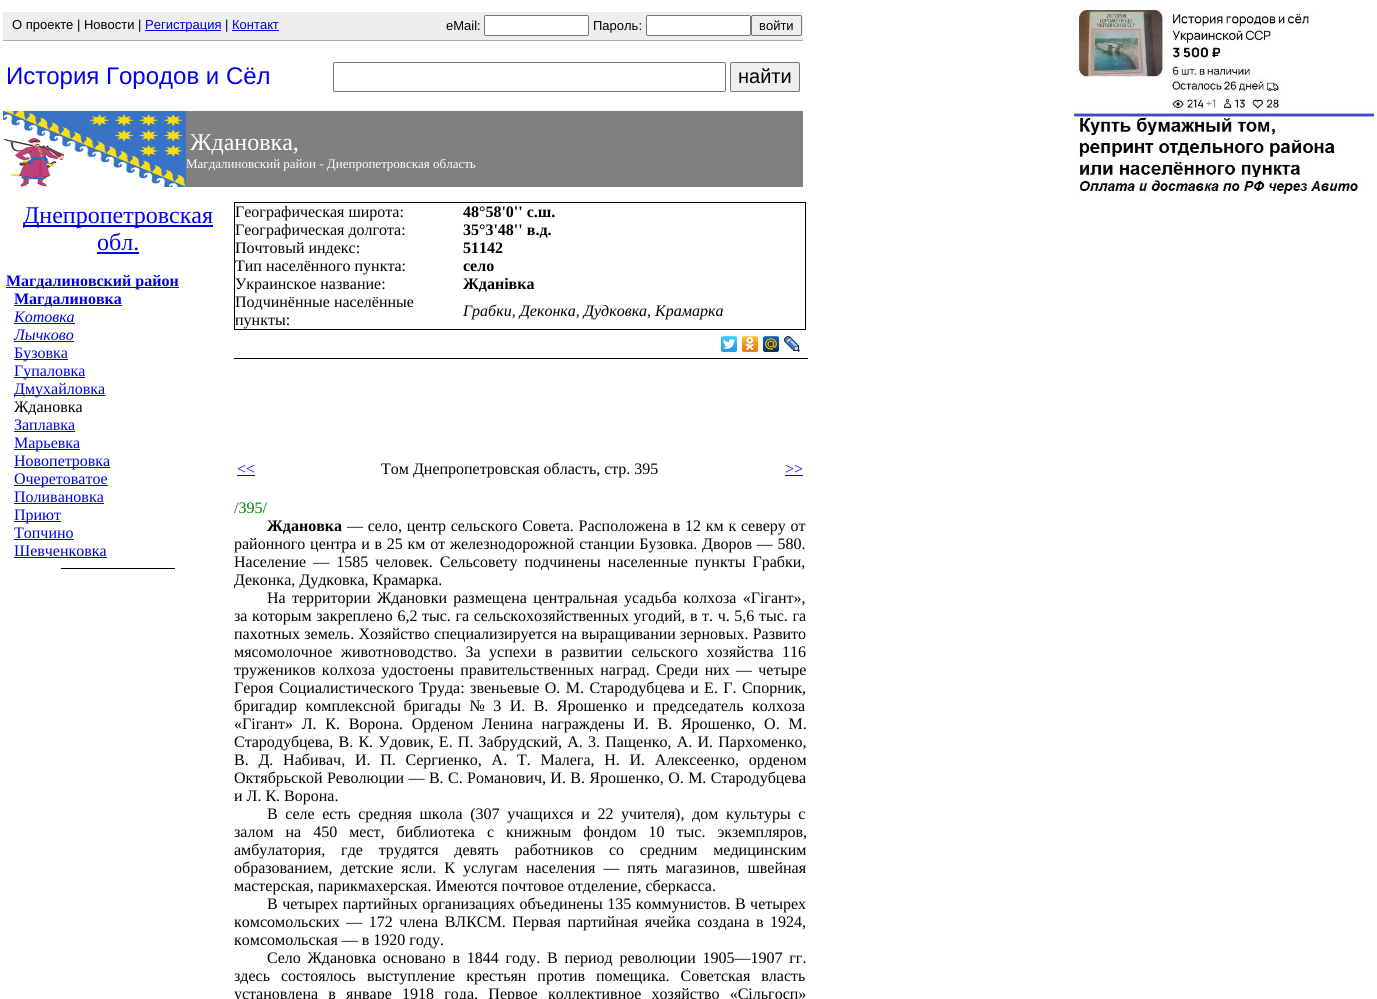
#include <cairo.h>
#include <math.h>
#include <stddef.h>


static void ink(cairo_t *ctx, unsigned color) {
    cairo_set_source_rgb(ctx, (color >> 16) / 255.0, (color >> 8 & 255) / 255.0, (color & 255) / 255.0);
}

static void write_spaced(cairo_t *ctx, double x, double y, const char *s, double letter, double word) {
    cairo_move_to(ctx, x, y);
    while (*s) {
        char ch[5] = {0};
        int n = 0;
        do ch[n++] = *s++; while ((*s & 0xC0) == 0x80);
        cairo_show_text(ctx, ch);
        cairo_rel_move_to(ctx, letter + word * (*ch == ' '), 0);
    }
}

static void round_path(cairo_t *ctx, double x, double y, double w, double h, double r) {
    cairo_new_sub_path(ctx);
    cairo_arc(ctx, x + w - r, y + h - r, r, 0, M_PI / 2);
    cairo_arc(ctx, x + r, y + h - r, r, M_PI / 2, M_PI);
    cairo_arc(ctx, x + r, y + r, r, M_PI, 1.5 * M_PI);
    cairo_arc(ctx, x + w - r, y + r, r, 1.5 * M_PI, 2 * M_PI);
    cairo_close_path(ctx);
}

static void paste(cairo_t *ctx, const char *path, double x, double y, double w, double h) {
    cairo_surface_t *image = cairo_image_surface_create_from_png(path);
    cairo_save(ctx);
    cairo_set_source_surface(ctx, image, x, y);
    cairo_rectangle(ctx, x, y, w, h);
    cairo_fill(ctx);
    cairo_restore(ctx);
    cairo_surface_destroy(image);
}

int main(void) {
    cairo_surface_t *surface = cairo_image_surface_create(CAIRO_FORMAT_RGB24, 1377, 999);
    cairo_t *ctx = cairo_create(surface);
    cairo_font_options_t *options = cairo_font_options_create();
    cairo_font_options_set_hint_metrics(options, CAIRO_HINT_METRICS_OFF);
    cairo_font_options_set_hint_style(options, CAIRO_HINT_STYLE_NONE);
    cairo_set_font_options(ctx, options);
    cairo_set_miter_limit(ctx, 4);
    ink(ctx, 0xFFFFFF);
    cairo_paint(ctx);
    ink(ctx, 0xEEEEEE);
    cairo_rectangle(ctx, 3, 12, 800, 28);
    cairo_fill(ctx);
    cairo_select_font_face(ctx, "Liberation Sans", CAIRO_FONT_SLANT_NORMAL, CAIRO_FONT_WEIGHT_NORMAL);
    cairo_set_font_size(ctx, 13);
    ink(ctx, 0x000000);
    cairo_move_to(ctx, 12, 29);
    cairo_show_text(ctx, "О проекте | Новости |");
    ink(ctx, 0x0000EE);
    cairo_rectangle(ctx, 145, 30, 76, 1);
    cairo_fill(ctx);
    cairo_move_to(ctx, 145, 29);
    cairo_show_text(ctx, "Регистрация");
    ink(ctx, 0x000000);
    cairo_move_to(ctx, 225, 29);
    cairo_show_text(ctx, "|");
    ink(ctx, 0x0000EE);
    cairo_move_to(ctx, 232, 29);
    cairo_show_text(ctx, "Контакт");
    cairo_rectangle(ctx, 232, 30, 47, 1);
    cairo_fill(ctx);
    ink(ctx, 0x000000);
    cairo_move_to(ctx, 446, 30);
    cairo_show_text(ctx, "eMail:");
    ink(ctx, 0xFFFFFF);
    round_path(ctx, 484.5, 15.5, 104, 20, 1.5);
    cairo_fill_preserve(ctx);
    ink(ctx, 0x767676);
    cairo_set_line_width(ctx, 1);
    cairo_stroke(ctx);
    ink(ctx, 0x000000);
    cairo_move_to(ctx, 593, 30);
    cairo_show_text(ctx, "Пароль:");
    ink(ctx, 0xFFFFFF);
    round_path(ctx, 646.5, 15.5, 104, 20, 1.5);
    cairo_fill_preserve(ctx);
    ink(ctx, 0x767676);
    cairo_stroke(ctx);
    round_path(ctx, 751.5, 15.5, 50, 20, 1.5);
    cairo_stroke(ctx);
    ink(ctx, 0x000000);
    cairo_move_to(ctx, 759, 30);
    cairo_show_text(ctx, "войти");
    ink(ctx, 0xAAAAAA);
    cairo_rectangle(ctx, 3, 40, 800, 1);
    cairo_fill(ctx);
    cairo_set_font_size(ctx, 24);
    ink(ctx, 0x0000EE);
    cairo_move_to(ctx, 6, 84);
    cairo_show_text(ctx, "История Городов и Сёл");
    round_path(ctx, 333.5, 62.5, 392, 29, 1.5);
    ink(ctx, 0x767676);
    cairo_stroke(ctx);
    ink(ctx, 0xEFEFEF);
    round_path(ctx, 730.5, 62.5, 69, 29, 1.5);
    cairo_fill_preserve(ctx);
    ink(ctx, 0x767676);
    cairo_stroke(ctx);
    cairo_set_font_size(ctx, 20);
    ink(ctx, 0x000000);
    cairo_move_to(ctx, 738, 83);
    cairo_show_text(ctx, "найти");
    paste(ctx, "media/1.png", 3, 111, 183, 76);
    ink(ctx, 0x808080);
    cairo_rectangle(ctx, 186, 111, 617, 76);
    cairo_fill(ctx);
    cairo_select_font_face(ctx, "Liberation Serif", CAIRO_FONT_SLANT_NORMAL, CAIRO_FONT_WEIGHT_NORMAL);
    cairo_set_font_size(ctx, 24);
    ink(ctx, 0xFFFFFF);
    cairo_move_to(ctx, 190, 150);
    cairo_show_text(ctx, "Ждановка,");
    cairo_set_font_size(ctx, 13);
    cairo_move_to(ctx, 186, 168);
    cairo_show_text(ctx, "Магдалиновский район - Днепропетровская область");
    paste(ctx, "media/2.png", 1074, 3, 300, 192);
    ink(ctx, 0x0000EE);
    cairo_rectangle(ctx, 23, 225, 190, 2);
    cairo_fill(ctx);
    cairo_set_font_size(ctx, 24);
    cairo_move_to(ctx, 23, 223);
    cairo_show_text(ctx, "Днепропетровская");
    cairo_move_to(ctx, 97, 250);
    cairo_show_text(ctx, "обл.");
    cairo_rectangle(ctx, 97, 252, 42, 2);
    cairo_fill(ctx);
    cairo_rectangle(ctx, 6, 287, 173, 1);
    cairo_fill(ctx);
    cairo_select_font_face(ctx, "Liberation Serif", CAIRO_FONT_SLANT_NORMAL, CAIRO_FONT_WEIGHT_BOLD);
    cairo_set_font_size(ctx, 16);
    cairo_move_to(ctx, 6, 286);
    cairo_show_text(ctx, "Магдалиновский район");
    cairo_rectangle(ctx, 14, 305, 108, 1);
    cairo_fill(ctx);
    cairo_move_to(ctx, 14, 304);
    cairo_show_text(ctx, "Магдалиновка");
    cairo_select_font_face(ctx, "Liberation Serif", CAIRO_FONT_SLANT_ITALIC, CAIRO_FONT_WEIGHT_NORMAL);
    cairo_move_to(ctx, 14, 322);
    cairo_show_text(ctx, "Котовка");
    cairo_rectangle(ctx, 14, 323, 61, 1);
    cairo_fill(ctx);
    cairo_move_to(ctx, 14, 340);
    cairo_show_text(ctx, "Лычково");
    cairo_rectangle(ctx, 14, 341, 60, 1);
    cairo_fill(ctx);
    cairo_rectangle(ctx, 14, 359, 54, 1);
    cairo_fill(ctx);
    cairo_select_font_face(ctx, "Liberation Serif", CAIRO_FONT_SLANT_NORMAL, CAIRO_FONT_WEIGHT_NORMAL);
    cairo_move_to(ctx, 14, 358);
    cairo_show_text(ctx, "Бузовка");
    cairo_rectangle(ctx, 14, 377, 71, 1);
    cairo_fill(ctx);
    cairo_move_to(ctx, 14, 376);
    cairo_show_text(ctx, "Гупаловка");
    cairo_rectangle(ctx, 14, 395, 91, 1);
    cairo_fill(ctx);
    cairo_move_to(ctx, 14, 394);
    cairo_show_text(ctx, "Дмухайловка");
    ink(ctx, 0x000000);
    cairo_move_to(ctx, 14, 412);
    cairo_show_text(ctx, "Ждановка");
    ink(ctx, 0x0000EE);
    cairo_move_to(ctx, 14, 430);
    cairo_show_text(ctx, "Заплавка");
    cairo_rectangle(ctx, 14, 431, 61, 1);
    cairo_fill(ctx);
    cairo_rectangle(ctx, 14, 449, 66, 1);
    cairo_fill(ctx);
    cairo_move_to(ctx, 14, 448);
    cairo_show_text(ctx, "Марьевка");
    cairo_rectangle(ctx, 14, 467, 96, 1);
    cairo_fill(ctx);
    cairo_move_to(ctx, 14, 466);
    cairo_show_text(ctx, "Новопетровка");
    cairo_rectangle(ctx, 14, 485, 94, 1);
    cairo_fill(ctx);
    cairo_move_to(ctx, 14, 484);
    cairo_show_text(ctx, "Очеретоватое");
    cairo_move_to(ctx, 14, 502);
    cairo_show_text(ctx, "Поливановка");
    cairo_rectangle(ctx, 14, 503, 90, 1);
    cairo_fill(ctx);
    cairo_rectangle(ctx, 14, 521, 47, 1);
    cairo_fill(ctx);
    cairo_move_to(ctx, 14, 520);
    cairo_show_text(ctx, "Приют");
    cairo_move_to(ctx, 14, 538);
    cairo_show_text(ctx, "Топчино");
    cairo_rectangle(ctx, 14, 539, 60, 1);
    cairo_fill(ctx);
    cairo_move_to(ctx, 14, 556);
    cairo_show_text(ctx, "Шевченковка");
    cairo_rectangle(ctx, 14, 557, 93, 1);
    cairo_fill(ctx);
    ink(ctx, 0x000000);
    cairo_rectangle(ctx, 61, 568, 114, 1);
    cairo_fill(ctx);
    cairo_rectangle(ctx, 234.5, 202.5, 571, 127);
    cairo_stroke(ctx);
    cairo_move_to(ctx, 235, 217);
    cairo_show_text(ctx, "Географическая широта:");
    cairo_select_font_face(ctx, "Liberation Serif", CAIRO_FONT_SLANT_NORMAL, CAIRO_FONT_WEIGHT_BOLD);
    cairo_move_to(ctx, 463, 217);
    cairo_show_text(ctx, "48°58'0'' с.ш.");
    cairo_select_font_face(ctx, "Liberation Serif", CAIRO_FONT_SLANT_NORMAL, CAIRO_FONT_WEIGHT_NORMAL);
    cairo_move_to(ctx, 235, 235);
    cairo_show_text(ctx, "Географическая долгота:");
    cairo_select_font_face(ctx, "Liberation Serif", CAIRO_FONT_SLANT_NORMAL, CAIRO_FONT_WEIGHT_BOLD);
    cairo_move_to(ctx, 463, 235);
    cairo_show_text(ctx, "35°3'48'' в.д.");
    cairo_select_font_face(ctx, "Liberation Serif", CAIRO_FONT_SLANT_NORMAL, CAIRO_FONT_WEIGHT_NORMAL);
    cairo_move_to(ctx, 235, 253);
    cairo_show_text(ctx, "Почтовый индекс:");
    cairo_select_font_face(ctx, "Liberation Serif", CAIRO_FONT_SLANT_NORMAL, CAIRO_FONT_WEIGHT_BOLD);
    cairo_move_to(ctx, 463, 253);
    cairo_show_text(ctx, "51142");
    cairo_select_font_face(ctx, "Liberation Serif", CAIRO_FONT_SLANT_NORMAL, CAIRO_FONT_WEIGHT_NORMAL);
    cairo_move_to(ctx, 235, 271);
    cairo_show_text(ctx, "Тип населённого пункта:");
    cairo_select_font_face(ctx, "Liberation Serif", CAIRO_FONT_SLANT_NORMAL, CAIRO_FONT_WEIGHT_BOLD);
    cairo_move_to(ctx, 463, 271);
    cairo_show_text(ctx, "село");
    cairo_select_font_face(ctx, "Liberation Serif", CAIRO_FONT_SLANT_NORMAL, CAIRO_FONT_WEIGHT_NORMAL);
    cairo_move_to(ctx, 235, 289);
    cairo_show_text(ctx, "Украинское название:");
    cairo_select_font_face(ctx, "Liberation Serif", CAIRO_FONT_SLANT_NORMAL, CAIRO_FONT_WEIGHT_BOLD);
    cairo_move_to(ctx, 463, 289);
    cairo_show_text(ctx, "Жданівка");
    cairo_select_font_face(ctx, "Liberation Serif", CAIRO_FONT_SLANT_NORMAL, CAIRO_FONT_WEIGHT_NORMAL);
    cairo_move_to(ctx, 235, 307);
    cairo_show_text(ctx, "Подчинённые населённые");
    cairo_move_to(ctx, 235, 325);
    cairo_show_text(ctx, "пункты:");
    cairo_select_font_face(ctx, "Liberation Serif", CAIRO_FONT_SLANT_ITALIC, CAIRO_FONT_WEIGHT_NORMAL);
    cairo_move_to(ctx, 463, 316);
    cairo_show_text(ctx, "Грабки, Деконка, Дудковка, Крамарка");
    paste(ctx, "media/3.png", 721, 336, 16, 16);
    paste(ctx, "media/4.png", 742, 336, 16, 16);
    paste(ctx, "media/5.png", 763, 336, 16, 16);
    paste(ctx, "media/6.png", 784, 336, 16, 16);
    cairo_rectangle(ctx, 234, 358, 574, 1);
    cairo_fill(ctx);
    cairo_select_font_face(ctx, "Liberation Serif", CAIRO_FONT_SLANT_NORMAL, CAIRO_FONT_WEIGHT_NORMAL);
    ink(ctx, 0x0000EE);
    cairo_move_to(ctx, 237, 474);
    cairo_show_text(ctx, "<<");
    cairo_rectangle(ctx, 237, 475, 18, 1);
    cairo_fill(ctx);
    ink(ctx, 0x000000);
    cairo_move_to(ctx, 381, 474);
    cairo_show_text(ctx, "Том Днепропетровская область, стр. 395");
    ink(ctx, 0x0000EE);
    cairo_move_to(ctx, 785, 474);
    cairo_show_text(ctx, ">>");
    cairo_rectangle(ctx, 785, 475, 18, 1);
    cairo_fill(ctx);
    ink(ctx, 0x008000);
    cairo_move_to(ctx, 234, 513);
    cairo_show_text(ctx, "/395/");
    cairo_select_font_face(ctx, "Liberation Serif", CAIRO_FONT_SLANT_NORMAL, CAIRO_FONT_WEIGHT_BOLD);
    ink(ctx, 0x000000);
    cairo_move_to(ctx, 267, 531);
    cairo_show_text(ctx, "Ждановка");
    cairo_select_font_face(ctx, "Liberation Serif", CAIRO_FONT_SLANT_NORMAL, CAIRO_FONT_WEIGHT_NORMAL);
    write_spaced(ctx, 347, 531, "— село, центр сельского Совета. Расположена в 12 км к северу от", 0, 0.75);
    write_spaced(ctx, 234, 549, "районного центра и в 25 км от железнодорожной станции Бузовка. Дворов — 580.", 0, 0.75);
    write_spaced(ctx, 234, 567, "Население — 1585 человек. Сельсовету подчинены населенные пункты Грабки,", 0, 3);
    cairo_move_to(ctx, 234, 585);
    cairo_show_text(ctx, "Деконка, Дудковка, Крамарка.");
    write_spaced(ctx, 267, 603, "На территории Ждановки размещена центральная усадьба колхоза «Гiгант»,", 0, 2.25);
    write_spaced(ctx, 234, 621, "за которым закреплено 6,2 тыс. га сельскохозяйственных угодий, в т. ч. 5,6 тыс. га", 0, 0.6);
    write_spaced(ctx, 234, 639, "пахотных земель. Хозяйство специализируется на выращивании зерновых. Развито", 0, 0.25);
    write_spaced(ctx, 234, 657, "мясомолочное животноводство. За успехи в развитии сельского хозяйства 116", 0, 4.5);
    write_spaced(ctx, 234, 675, "тружеников колхоза удостоены правительственных наград. Среди них — четыре", 0, 2.25);
    write_spaced(ctx, 234, 693, "Героя Социалистического Труда: звеньевые О. М. Стародубцева и Е. Г. Спорник,", 0, 1.4);
    write_spaced(ctx, 234, 711, "бригадир комплексной бригады № 3 И. В. Ярошенко и председатель колхоза", 0, 4.5);
    write_spaced(ctx, 234, 729, "«Гiгант» Л. К. Ворона. Орденом Ленина награждены И. В. Ярошенко, О. М.", 0, 4.75);
    write_spaced(ctx, 234, 747, "Стародубцева, В. К. Удовик, Е. П. Забрудский, А. 3. Пащенко, А. И. Пархоменко,", 0, 1.2);
    write_spaced(ctx, 234, 765, "В. Д. Набивач, И. П. Сергиенко, А. Т. Малега, Н. И. Алексеенко, орденом", 0, 5.75);
    write_spaced(ctx, 234, 783, "Октябрьской Революции — В. С. Романович, И. В. Ярошенко, О. М. Стародубцева", 0, 0.4);
    cairo_move_to(ctx, 234, 801);
    cairo_show_text(ctx, "и Л. К. Ворона.");
    write_spaced(ctx, 267, 819, "В селе есть средняя школа (307 учащихся и 22 учителя), дом культуры с", 0, 3.6);
    write_spaced(ctx, 234, 837, "залом на 450 мест, библиотека с книжным фондом 10 тыс. экземпляров,", 0, 8);
    write_spaced(ctx, 234, 855, "амбулатория, где трудятся девять работников со средним медицинским", 0, 11.75);
    write_spaced(ctx, 234, 873, "образованием, детские ясли. К услугам населения — пять магазинов, швейная", 0, 4);
    cairo_move_to(ctx, 234, 891);
    cairo_show_text(ctx, "мастерская, парикмахерская. Имеются почтовое отделение, сберкасса.");
    write_spaced(ctx, 267, 909, "В четырех партийных организациях объединены 135 коммунистов. В четырех", 0, 0.5);
    write_spaced(ctx, 234, 927, "комсомольских — 172 члена ВЛКСМ. Первая партийная ячейка создана в 1924,", 0, 2.5);
    cairo_move_to(ctx, 234, 945);
    cairo_show_text(ctx, "комсомольская — в 1920 году.");
    write_spaced(ctx, 267, 963, "Село Ждановка основано в 1844 году. В период революции 1905—1907 гг.", 0, 2.75);
    write_spaced(ctx, 234, 981, "здесь состоялось выступление крестьян против помещика. Советская власть", 0, 7);
    write_spaced(ctx, 234, 999, "установлена в январе 1918 года. Первое коллективное хозяйство «Сiльгосп»", 0, 6.25);
    cairo_surface_write_to_png(surface, "image.png");
    cairo_font_options_destroy(options);
    cairo_destroy(ctx);
    cairo_surface_destroy(surface);
    return 0;
}
